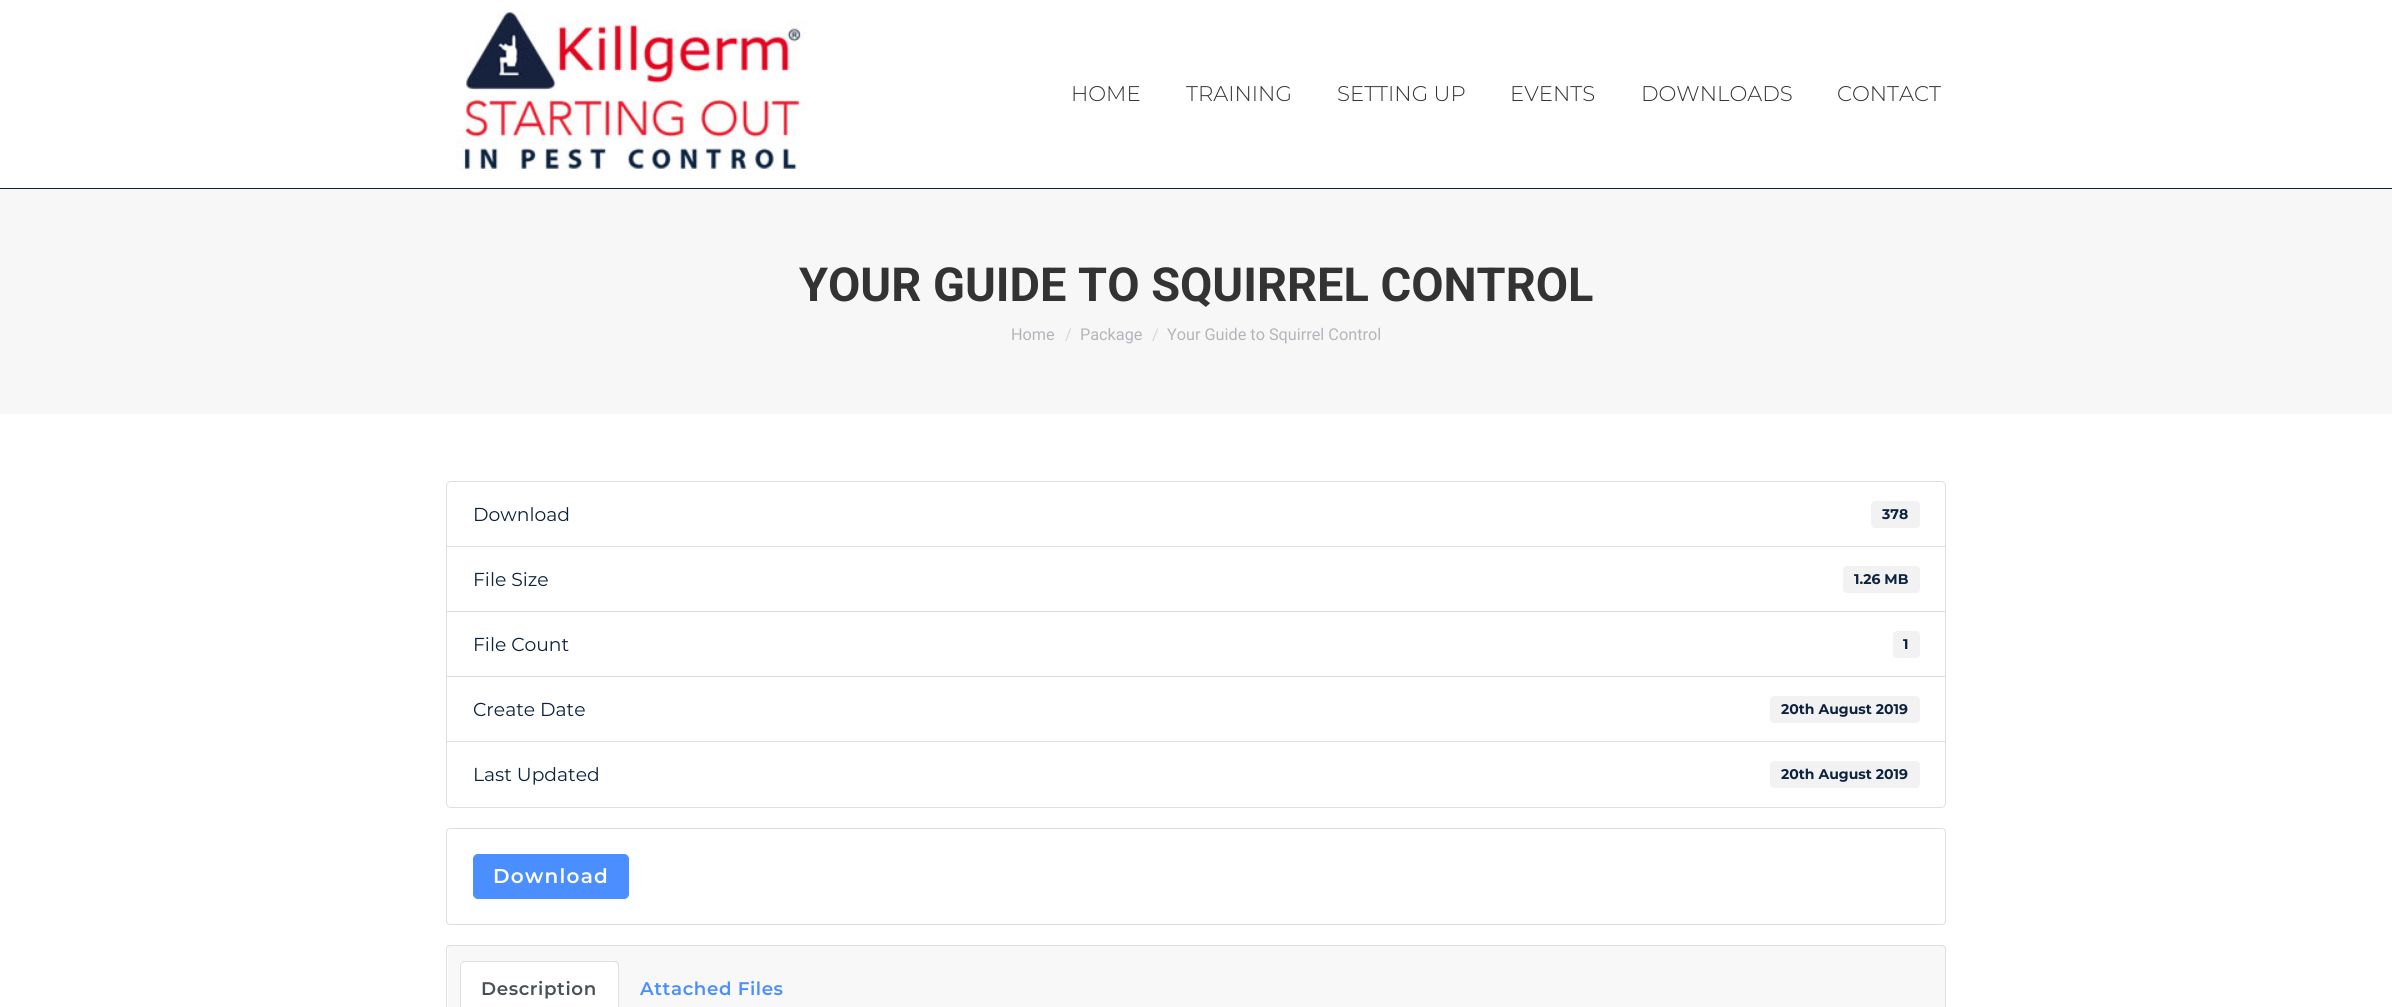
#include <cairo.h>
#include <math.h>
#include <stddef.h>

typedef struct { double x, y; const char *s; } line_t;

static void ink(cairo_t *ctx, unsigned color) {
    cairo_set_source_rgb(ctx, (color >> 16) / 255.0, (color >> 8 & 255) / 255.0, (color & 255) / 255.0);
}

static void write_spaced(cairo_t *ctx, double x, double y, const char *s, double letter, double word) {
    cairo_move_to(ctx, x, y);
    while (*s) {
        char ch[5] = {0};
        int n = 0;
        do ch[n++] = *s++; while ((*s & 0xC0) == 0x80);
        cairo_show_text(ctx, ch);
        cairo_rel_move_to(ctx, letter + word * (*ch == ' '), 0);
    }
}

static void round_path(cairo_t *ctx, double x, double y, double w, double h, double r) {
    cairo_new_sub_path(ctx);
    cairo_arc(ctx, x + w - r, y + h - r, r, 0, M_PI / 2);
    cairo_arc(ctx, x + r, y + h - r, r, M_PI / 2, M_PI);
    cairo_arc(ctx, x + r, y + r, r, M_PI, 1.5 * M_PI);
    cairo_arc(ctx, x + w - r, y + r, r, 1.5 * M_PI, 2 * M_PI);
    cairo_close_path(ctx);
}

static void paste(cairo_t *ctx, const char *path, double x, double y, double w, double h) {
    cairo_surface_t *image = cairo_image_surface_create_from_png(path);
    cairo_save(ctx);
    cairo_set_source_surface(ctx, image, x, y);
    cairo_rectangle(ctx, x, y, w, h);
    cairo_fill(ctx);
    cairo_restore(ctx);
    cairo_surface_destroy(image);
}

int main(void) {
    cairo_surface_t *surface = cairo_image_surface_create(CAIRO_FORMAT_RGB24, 2392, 1007);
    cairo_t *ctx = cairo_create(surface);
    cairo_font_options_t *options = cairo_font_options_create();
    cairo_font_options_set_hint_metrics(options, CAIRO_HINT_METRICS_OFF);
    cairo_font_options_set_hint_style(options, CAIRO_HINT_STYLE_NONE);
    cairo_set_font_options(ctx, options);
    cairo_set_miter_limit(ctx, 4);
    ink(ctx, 0xFFFFFF);
    cairo_paint(ctx);
    ink(ctx, 0x0D223F);
    cairo_rectangle(ctx, 0, 188, 2392, 1);
    cairo_fill(ctx);
    paste(ctx, "media/1.png", 456, 10, 351, 160);
    cairo_select_font_face(ctx, "Montserrat Light", CAIRO_FONT_SLANT_NORMAL, CAIRO_FONT_WEIGHT_NORMAL);
    cairo_set_font_size(ctx, 21.25);
    ink(ctx, 0x333333);
    {
        static const line_t items[] = {
            {1071, 101, "HOME"},
            {1186, 101, "TRAINING"},
            {1337, 101, "SETTING UP"},
            {1510, 101, "EVENTS"},
            {1641, 101, "DOWNLOADS"},
            {1837, 101, "CONTACT"},
        };
        for (size_t i = 0; i < sizeof items / sizeof *items; i++) {
            cairo_move_to(ctx, items[i].x, items[i].y);
            cairo_show_text(ctx, items[i].s);
        }
    }
    ink(ctx, 0xF7F7F7);
    cairo_rectangle(ctx, 0, 189, 2392, 225);
    cairo_fill(ctx);
    cairo_select_font_face(ctx, "Roboto", CAIRO_FONT_SLANT_NORMAL, CAIRO_FONT_WEIGHT_BOLD);
    cairo_set_font_size(ctx, 46.9);
    ink(ctx, 0x333333);
    cairo_move_to(ctx, 799, 301);
    cairo_show_text(ctx, "YOUR GUIDE TO SQUIRREL CONTROL");
    cairo_select_font_face(ctx, "Roboto", CAIRO_FONT_SLANT_NORMAL, CAIRO_FONT_WEIGHT_NORMAL);
    cairo_set_font_size(ctx, 16.25);
    ink(ctx, 0xB4B5BB);
    cairo_move_to(ctx, 1011, 340);
    cairo_show_text(ctx, "Home");
    ink(ctx, 0xD6D6D9);
    cairo_move_to(ctx, 1065, 340);
    cairo_show_text(ctx, "/");
    ink(ctx, 0xB4B5BB);
    cairo_move_to(ctx, 1080, 340);
    cairo_show_text(ctx, "Package");
    ink(ctx, 0xD6D6D9);
    cairo_move_to(ctx, 1152, 340);
    cairo_show_text(ctx, "/");
    ink(ctx, 0xB4B5BB);
    cairo_move_to(ctx, 1167, 340);
    cairo_show_text(ctx, "Your Guide to Squirrel Control");
    cairo_new_path(ctx);
    cairo_move_to(ctx, 451, 481.5);
    cairo_line_to(ctx, 1941, 481.5);
    cairo_curve_to(ctx, 1943.5, 481.5, 1945.5, 483.5, 1945.5, 486);
    cairo_line_to(ctx, 1945.5, 547.5);
    cairo_line_to(ctx, 446.5, 547.5);
    cairo_line_to(ctx, 446.5, 486);
    cairo_curve_to(ctx, 446.5, 483.5, 448.5, 481.5, 451, 481.5);
    cairo_close_path(ctx);
    ink(ctx, 0xDFDFDF);
    cairo_set_line_width(ctx, 1);
    cairo_stroke(ctx);
    cairo_select_font_face(ctx, "Montserrat", CAIRO_FONT_SLANT_NORMAL, CAIRO_FONT_WEIGHT_NORMAL);
    cairo_set_font_size(ctx, 18.75);
    ink(ctx, 0x0D223F);
    cairo_move_to(ctx, 473, 521);
    cairo_show_text(ctx, "Download");
    ink(ctx, 0xF2F2F2);
    round_path(ctx, 1871, 501, 49, 27, 4);
    cairo_fill(ctx);
    cairo_select_font_face(ctx, "Montserrat", CAIRO_FONT_SLANT_NORMAL, CAIRO_FONT_WEIGHT_BOLD);
    cairo_set_font_size(ctx, 14);
    ink(ctx, 0x0D223F);
    cairo_move_to(ctx, 1882, 519);
    cairo_show_text(ctx, "378");
    ink(ctx, 0xFFFFFF);
    cairo_rectangle(ctx, 447, 547, 1498, 1);
    cairo_fill(ctx);
    cairo_rectangle(ctx, 446.5, 546.5, 1499, 66);
    ink(ctx, 0xDFDFDF);
    cairo_stroke(ctx);
    cairo_select_font_face(ctx, "Montserrat", CAIRO_FONT_SLANT_NORMAL, CAIRO_FONT_WEIGHT_NORMAL);
    cairo_set_font_size(ctx, 18.75);
    ink(ctx, 0x0D223F);
    cairo_move_to(ctx, 473, 586);
    cairo_show_text(ctx, "File Size");
    ink(ctx, 0xF2F2F2);
    round_path(ctx, 1843, 566, 77, 27, 4);
    cairo_fill(ctx);
    cairo_select_font_face(ctx, "Montserrat", CAIRO_FONT_SLANT_NORMAL, CAIRO_FONT_WEIGHT_BOLD);
    cairo_set_font_size(ctx, 14);
    ink(ctx, 0x0D223F);
    cairo_move_to(ctx, 1854, 584);
    cairo_show_text(ctx, "1.26 MB");
    ink(ctx, 0xFFFFFF);
    cairo_rectangle(ctx, 447, 612, 1498, 1);
    cairo_fill(ctx);
    cairo_rectangle(ctx, 446.5, 611.5, 1499, 66);
    ink(ctx, 0xDFDFDF);
    cairo_stroke(ctx);
    cairo_select_font_face(ctx, "Montserrat", CAIRO_FONT_SLANT_NORMAL, CAIRO_FONT_WEIGHT_NORMAL);
    cairo_set_font_size(ctx, 18.75);
    ink(ctx, 0x0D223F);
    cairo_move_to(ctx, 473, 651);
    cairo_show_text(ctx, "File Count");
    ink(ctx, 0xF2F2F2);
    round_path(ctx, 1893, 631, 27, 27, 4);
    cairo_fill(ctx);
    cairo_select_font_face(ctx, "Montserrat", CAIRO_FONT_SLANT_NORMAL, CAIRO_FONT_WEIGHT_BOLD);
    cairo_set_font_size(ctx, 14);
    ink(ctx, 0x0D223F);
    cairo_move_to(ctx, 1903, 649);
    cairo_show_text(ctx, "1");
    ink(ctx, 0xFFFFFF);
    cairo_rectangle(ctx, 447, 677, 1498, 1);
    cairo_fill(ctx);
    cairo_rectangle(ctx, 446.5, 676.5, 1499, 66);
    ink(ctx, 0xDFDFDF);
    cairo_stroke(ctx);
    cairo_select_font_face(ctx, "Montserrat", CAIRO_FONT_SLANT_NORMAL, CAIRO_FONT_WEIGHT_NORMAL);
    cairo_set_font_size(ctx, 18.75);
    ink(ctx, 0x0D223F);
    cairo_move_to(ctx, 473, 716);
    cairo_show_text(ctx, "Create Date");
    ink(ctx, 0xF2F2F2);
    round_path(ctx, 1770, 696, 150, 27, 4);
    cairo_fill(ctx);
    cairo_select_font_face(ctx, "Montserrat", CAIRO_FONT_SLANT_NORMAL, CAIRO_FONT_WEIGHT_BOLD);
    cairo_set_font_size(ctx, 14);
    ink(ctx, 0x0D223F);
    cairo_move_to(ctx, 1781, 714);
    cairo_show_text(ctx, "20th August 2019");
    ink(ctx, 0xFFFFFF);
    cairo_new_path(ctx);
    cairo_move_to(ctx, 446.5, 741.5);
    cairo_line_to(ctx, 1945.5, 741.5);
    cairo_line_to(ctx, 1945.5, 803);
    cairo_curve_to(ctx, 1945.5, 805.5, 1943.5, 807.5, 1941, 807.5);
    cairo_line_to(ctx, 451, 807.5);
    cairo_curve_to(ctx, 448.5, 807.5, 446.5, 805.5, 446.5, 803);
    cairo_close_path(ctx);
    cairo_fill_preserve(ctx);
    ink(ctx, 0xDFDFDF);
    cairo_stroke(ctx);
    cairo_select_font_face(ctx, "Montserrat", CAIRO_FONT_SLANT_NORMAL, CAIRO_FONT_WEIGHT_NORMAL);
    cairo_set_font_size(ctx, 18.75);
    ink(ctx, 0x0D223F);
    cairo_move_to(ctx, 473, 781);
    cairo_show_text(ctx, "Last Updated");
    ink(ctx, 0xF2F2F2);
    round_path(ctx, 1770, 761, 150, 27, 4);
    cairo_fill(ctx);
    cairo_select_font_face(ctx, "Montserrat", CAIRO_FONT_SLANT_NORMAL, CAIRO_FONT_WEIGHT_BOLD);
    cairo_set_font_size(ctx, 14);
    ink(ctx, 0x0D223F);
    cairo_move_to(ctx, 1781, 779);
    cairo_show_text(ctx, "20th August 2019");
    round_path(ctx, 446.5, 828.5, 1499, 96, 3.5);
    ink(ctx, 0xDFDFDF);
    cairo_stroke(ctx);
    ink(ctx, 0x4A8EFF);
    round_path(ctx, 473.5, 854.5, 155, 44, 4.5);
    cairo_fill_preserve(ctx);
    cairo_stroke(ctx);
    cairo_select_font_face(ctx, "Montserrat SemiBold", CAIRO_FONT_SLANT_NORMAL, CAIRO_FONT_WEIGHT_NORMAL);
    cairo_set_font_size(ctx, 20);
    ink(ctx, 0xFFFFFF);
    write_spaced(ctx, 493, 883, "Download", 1.25, 0);
    round_path(ctx, 446.5, 945.5, 1499, 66, 3.5);
    ink(ctx, 0xDFDFDF);
    cairo_stroke(ctx);
    cairo_set_source_rgba(ctx, 0, 0, 0, 0.03);
    cairo_rectangle(ctx, 448, 946, 1497, 61);
    cairo_fill(ctx);
    ink(ctx, 0xFFFFFF);
    cairo_new_path(ctx);
    cairo_move_to(ctx, 465, 961);
    cairo_line_to(ctx, 614, 961);
    cairo_curve_to(ctx, 617, 961, 619, 963, 619, 966);
    cairo_line_to(ctx, 619, 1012);
    cairo_line_to(ctx, 460, 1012);
    cairo_line_to(ctx, 460, 966);
    cairo_curve_to(ctx, 460, 963, 462, 961, 465, 961);
    cairo_close_path(ctx);
    cairo_fill(ctx);
    ink(ctx, 0xDEE2E6);
    cairo_new_path(ctx);
    cairo_move_to(ctx, 465, 962);
    cairo_line_to(ctx, 462, 963);
    cairo_line_to(ctx, 461, 963);
    cairo_line_to(ctx, 463, 961);
    cairo_line_to(ctx, 616, 961);
    cairo_line_to(ctx, 618, 962);
    cairo_line_to(ctx, 617, 963);
    cairo_line_to(ctx, 614, 962);
    cairo_close_path(ctx);
    cairo_fill(ctx);
    cairo_new_path(ctx);
    cairo_move_to(ctx, 618, 962);
    cairo_line_to(ctx, 619, 964);
    cairo_line_to(ctx, 619, 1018);
    cairo_line_to(ctx, 617, 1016);
    cairo_line_to(ctx, 618, 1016);
    cairo_line_to(ctx, 618, 966);
    cairo_line_to(ctx, 617, 963);
    cairo_close_path(ctx);
    cairo_fill(ctx);
    cairo_new_path(ctx);
    cairo_move_to(ctx, 460, 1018);
    cairo_line_to(ctx, 462, 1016);
    cairo_line_to(ctx, 461, 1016);
    cairo_line_to(ctx, 461, 966);
    cairo_curve_to(ctx, 461, 965, 461, 964, 462, 963);
    cairo_line_to(ctx, 461, 963);
    cairo_curve_to(ctx, 460, 963, 460, 965, 460, 966);
    cairo_close_path(ctx);
    cairo_fill(ctx);
    cairo_set_font_size(ctx, 18.25);
    ink(ctx, 0x495057);
    write_spaced(ctx, 481, 995, "Description", 0.6, 0);
    ink(ctx, 0x4A8EFF);
    write_spaced(ctx, 640, 995, "Attached Files", 0.6, 0);
    cairo_surface_write_to_png(surface, "image.png");
    cairo_font_options_destroy(options);
    cairo_destroy(ctx);
    cairo_surface_destroy(surface);
    return 0;
}
